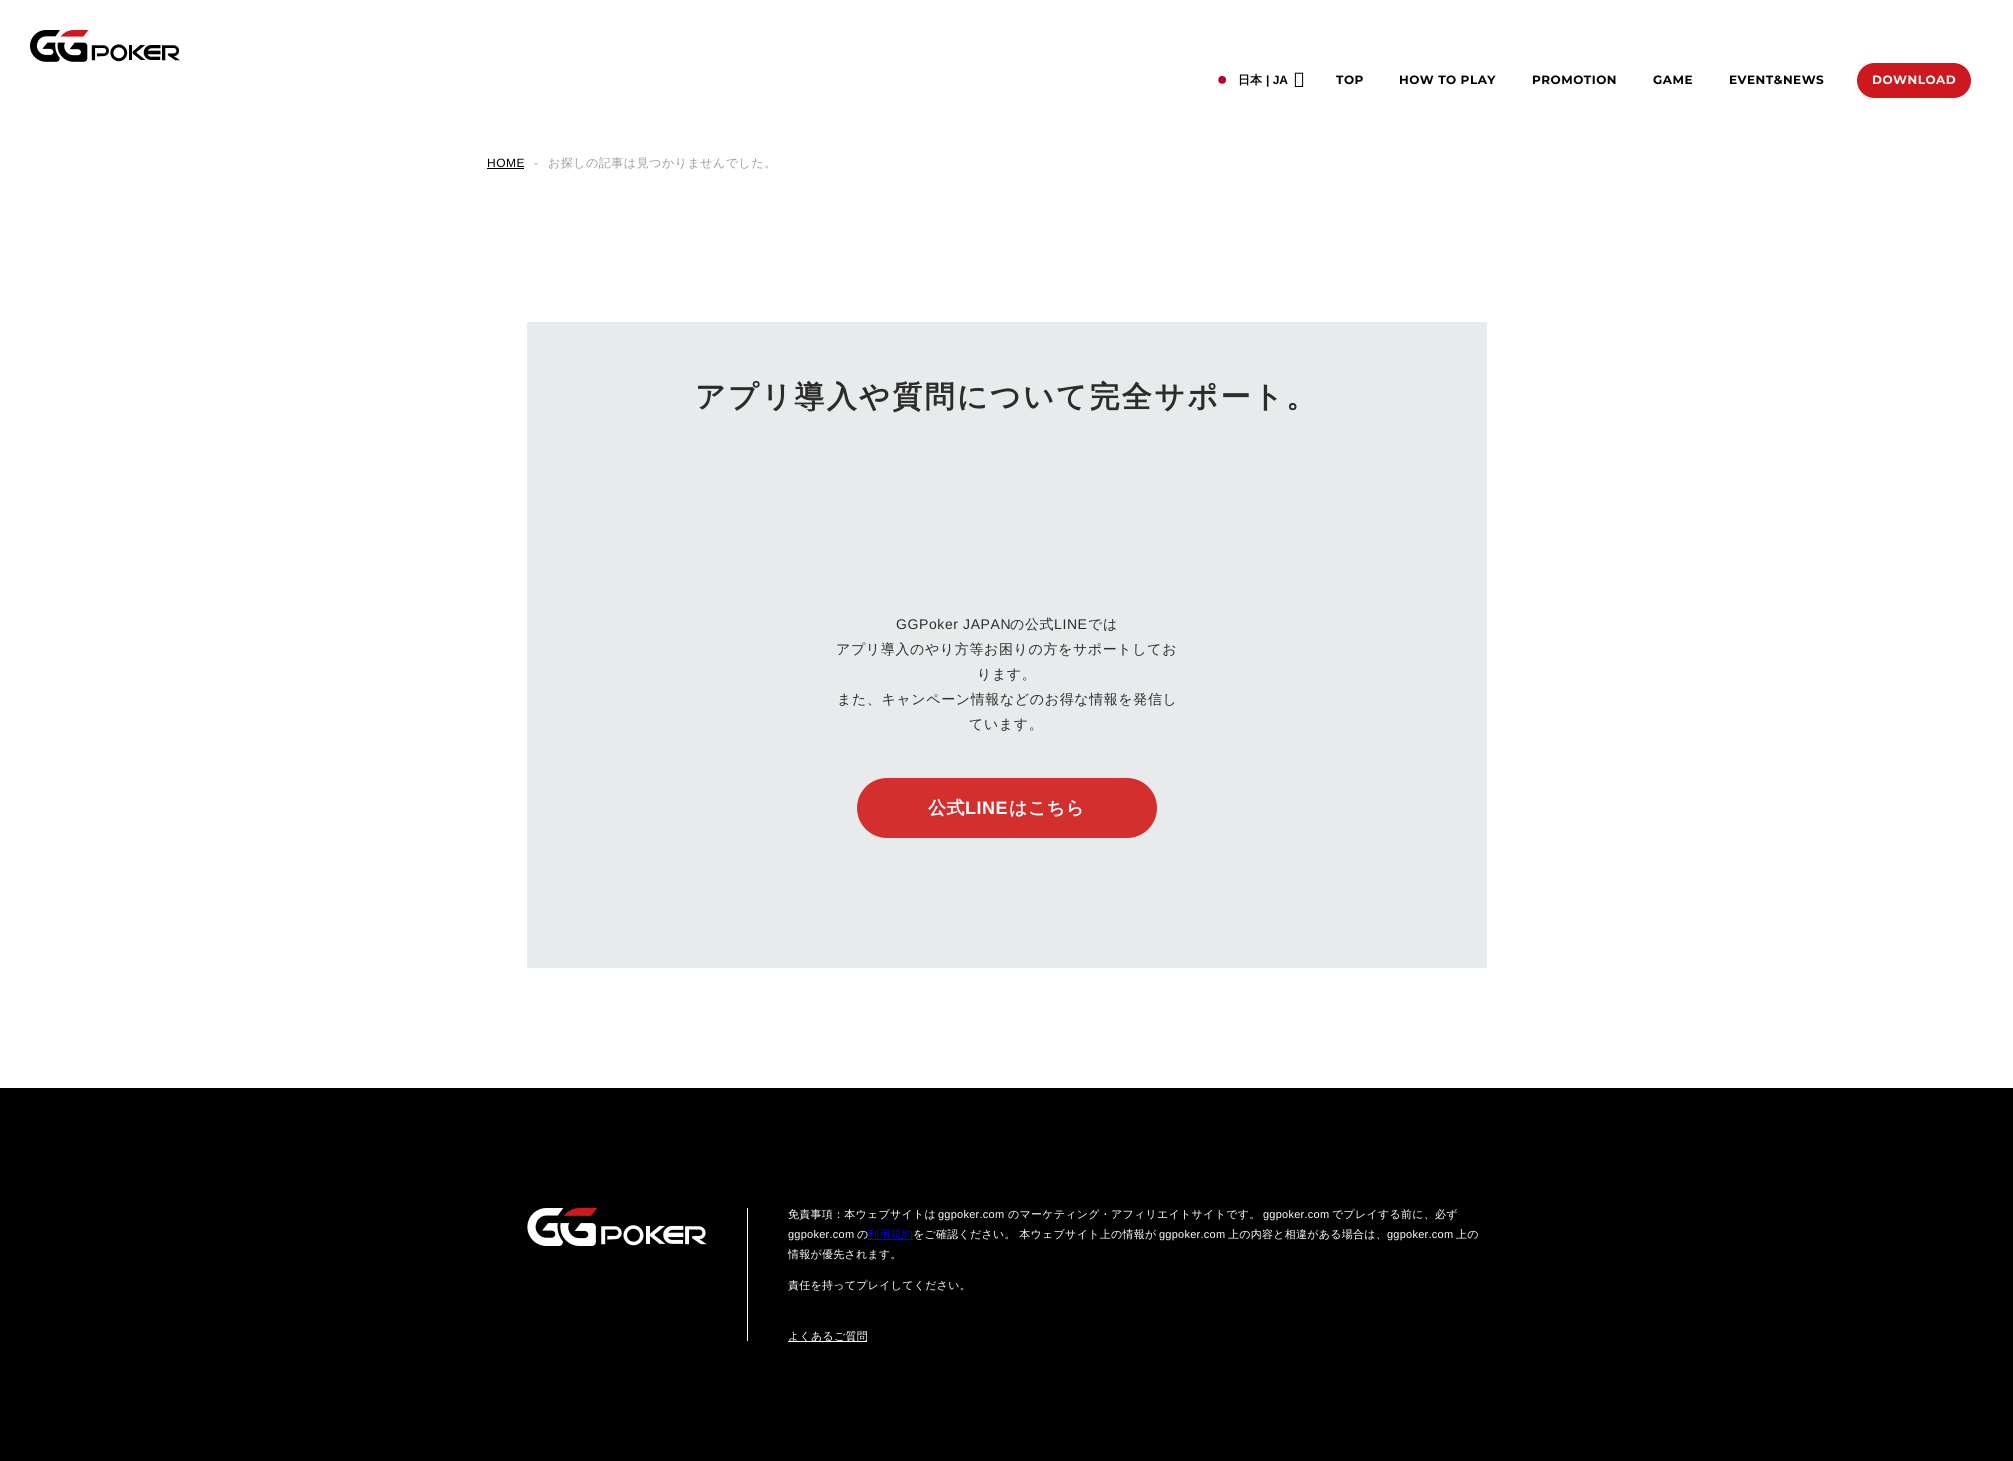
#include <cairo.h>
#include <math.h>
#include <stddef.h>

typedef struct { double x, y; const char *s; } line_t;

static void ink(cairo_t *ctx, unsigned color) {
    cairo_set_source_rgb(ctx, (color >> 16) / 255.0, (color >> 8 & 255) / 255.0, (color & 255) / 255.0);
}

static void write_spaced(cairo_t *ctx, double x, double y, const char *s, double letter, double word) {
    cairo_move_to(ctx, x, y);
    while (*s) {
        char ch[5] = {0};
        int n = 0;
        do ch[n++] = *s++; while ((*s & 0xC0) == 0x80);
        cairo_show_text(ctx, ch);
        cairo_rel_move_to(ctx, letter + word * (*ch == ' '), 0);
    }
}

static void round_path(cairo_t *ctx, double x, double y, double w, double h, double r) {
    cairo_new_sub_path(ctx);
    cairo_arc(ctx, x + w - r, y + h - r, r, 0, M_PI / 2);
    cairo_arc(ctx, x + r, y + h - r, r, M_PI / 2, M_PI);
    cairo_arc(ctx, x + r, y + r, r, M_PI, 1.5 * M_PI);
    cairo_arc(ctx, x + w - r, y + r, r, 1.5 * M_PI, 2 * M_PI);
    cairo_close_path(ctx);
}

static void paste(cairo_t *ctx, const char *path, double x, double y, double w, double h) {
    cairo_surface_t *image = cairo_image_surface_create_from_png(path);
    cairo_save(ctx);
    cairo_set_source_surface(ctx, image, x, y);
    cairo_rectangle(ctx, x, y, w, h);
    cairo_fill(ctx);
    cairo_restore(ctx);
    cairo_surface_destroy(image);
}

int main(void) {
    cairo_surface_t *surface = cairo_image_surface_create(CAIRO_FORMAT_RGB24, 2013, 1461);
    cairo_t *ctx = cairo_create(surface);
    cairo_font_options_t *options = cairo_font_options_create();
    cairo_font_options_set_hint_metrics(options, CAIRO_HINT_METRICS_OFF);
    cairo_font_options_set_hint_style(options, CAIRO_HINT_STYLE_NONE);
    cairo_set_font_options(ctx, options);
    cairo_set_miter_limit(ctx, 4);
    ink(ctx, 0xFFFFFF);
    cairo_paint(ctx);
    paste(ctx, "media/1.png", 30, 30, 150, 32);
    paste(ctx, "media/2.png", 1218, 76, 8, 8);
    cairo_select_font_face(ctx, "WenQuanYi Zen Hei", CAIRO_FONT_SLANT_NORMAL, CAIRO_FONT_WEIGHT_BOLD);
    cairo_set_font_size(ctx, 12);
    ink(ctx, 0x000000);
    cairo_move_to(ctx, 1238, 84);
    cairo_show_text(ctx, "日本");
    cairo_select_font_face(ctx, "Liberation Sans", CAIRO_FONT_SLANT_NORMAL, CAIRO_FONT_WEIGHT_BOLD);
    cairo_move_to(ctx, 1266, 84);
    cairo_show_text(ctx, "| JA");
    paste(ctx, "media/3.png", 1294, 72, 10, 15);
    cairo_select_font_face(ctx, "Montserrat", CAIRO_FONT_SLANT_NORMAL, CAIRO_FONT_WEIGHT_BOLD);
    {
        static const line_t items[] = {
            {1336, 84, "TOP"},
            {1399, 84, "HOW TO PLAY"},
            {1532, 84, "PROMOTION"},
            {1653, 84, "GAME"},
            {1729, 84, "EVENT&NEWS"},
        };
        for (size_t i = 0; i < sizeof items / sizeof *items; i++) {
            write_spaced(ctx, items[i].x, items[i].y, items[i].s, 0.5, 0);
        }
    }
    ink(ctx, 0xCD181F);
    round_path(ctx, 1857, 63, 114, 35, 17.5);
    cairo_fill(ctx);
    ink(ctx, 0xFFFFFF);
    write_spaced(ctx, 1872, 84, "DOWNLOAD", 0.5, 0);
    cairo_select_font_face(ctx, "Liberation Sans", CAIRO_FONT_SLANT_NORMAL, CAIRO_FONT_WEIGHT_NORMAL);
    ink(ctx, 0x000000);
    write_spaced(ctx, 487, 167, "HOME", 0.5, 0);
    cairo_rectangle(ctx, 487, 168, 37, 1);
    cairo_fill(ctx);
    ink(ctx, 0x9D9D9D);
    write_spaced(ctx, 534, 167, "-", 0.5, 0);
    cairo_select_font_face(ctx, "WenQuanYi Zen Hei Medium", CAIRO_FONT_SLANT_NORMAL, CAIRO_FONT_WEIGHT_NORMAL);
    write_spaced(ctx, 548, 167, "お探しの記事は見つかりませんでした。", 0.5, 0);
    ink(ctx, 0xE8EBEC);
    cairo_rectangle(ctx, 527, 322, 960, 646);
    cairo_fill(ctx);
    cairo_select_font_face(ctx, "WenQuanYi Zen Hei", CAIRO_FONT_SLANT_NORMAL, CAIRO_FONT_WEIGHT_BOLD);
    cairo_set_font_size(ctx, 30);
    ink(ctx, 0x2C2C2C);
    write_spaced(ctx, 695, 407, "アプリ導入や質問について完全サポート。", 2.4, 0);
    cairo_select_font_face(ctx, "Liberation Sans", CAIRO_FONT_SLANT_NORMAL, CAIRO_FONT_WEIGHT_NORMAL);
    cairo_set_font_size(ctx, 14);
    write_spaced(ctx, 896, 629, "GGPoker JAPAN", 0.6, 0);
    cairo_select_font_face(ctx, "WenQuanYi Zen Hei Medium", CAIRO_FONT_SLANT_NORMAL, CAIRO_FONT_WEIGHT_NORMAL);
    write_spaced(ctx, 1010, 629, "の公式", 0.6, 0);
    cairo_select_font_face(ctx, "Liberation Sans", CAIRO_FONT_SLANT_NORMAL, CAIRO_FONT_WEIGHT_NORMAL);
    write_spaced(ctx, 1054, 629, "LINE", 0.6, 0);
    cairo_select_font_face(ctx, "WenQuanYi Zen Hei Medium", CAIRO_FONT_SLANT_NORMAL, CAIRO_FONT_WEIGHT_NORMAL);
    {
        static const line_t items[] = {
            {1088, 629, "では"},
            {836, 654, "アプリ導入のやり方等お困りの方をサポートしてお"},
            {977, 679, "ります。"},
            {837, 704, "また、キャンペーン情報などのお得な情報を発信し"},
            {969, 729, "ています。"},
        };
        for (size_t i = 0; i < sizeof items / sizeof *items; i++) {
            write_spaced(ctx, items[i].x, items[i].y, items[i].s, 0.6, 0);
        }
    }
    ink(ctx, 0xD32F2F);
    round_path(ctx, 857, 778, 300, 60, 30);
    cairo_fill(ctx);
    cairo_select_font_face(ctx, "WenQuanYi Zen Hei", CAIRO_FONT_SLANT_NORMAL, CAIRO_FONT_WEIGHT_BOLD);
    cairo_set_font_size(ctx, 18);
    ink(ctx, 0xFFFFFF);
    write_spaced(ctx, 928, 814, "公式", 0.5, 0);
    cairo_select_font_face(ctx, "Liberation Sans", CAIRO_FONT_SLANT_NORMAL, CAIRO_FONT_WEIGHT_BOLD);
    write_spaced(ctx, 965, 814, "LINE", 0.5, 0);
    cairo_select_font_face(ctx, "WenQuanYi Zen Hei", CAIRO_FONT_SLANT_NORMAL, CAIRO_FONT_WEIGHT_BOLD);
    write_spaced(ctx, 1009, 814, "はこちら", 0.5, 0);
    ink(ctx, 0x000000);
    cairo_rectangle(ctx, 0, 1088, 2013, 373);
    cairo_fill(ctx);
    paste(ctx, "media/4.png", 527, 1208, 180, 38);
    ink(ctx, 0xFFFFFF);
    cairo_rectangle(ctx, 747, 1208, 1, 133);
    cairo_fill(ctx);
    cairo_select_font_face(ctx, "WenQuanYi Zen Hei Medium", CAIRO_FONT_SLANT_NORMAL, CAIRO_FONT_WEIGHT_NORMAL);
    cairo_set_font_size(ctx, 11);
    write_spaced(ctx, 788, 1218, "免責事項：本ウェブサイトは", 0.25, 0);
    cairo_select_font_face(ctx, "Liberation Sans", CAIRO_FONT_SLANT_NORMAL, CAIRO_FONT_WEIGHT_NORMAL);
    write_spaced(ctx, 938, 1218, "ggpoker.com", 0.25, 0);
    cairo_select_font_face(ctx, "WenQuanYi Zen Hei Medium", CAIRO_FONT_SLANT_NORMAL, CAIRO_FONT_WEIGHT_NORMAL);
    write_spaced(ctx, 1008, 1218, "のマーケティング・アフィリエイトサイトです。", 0.25, 0);
    cairo_select_font_face(ctx, "Liberation Sans", CAIRO_FONT_SLANT_NORMAL, CAIRO_FONT_WEIGHT_NORMAL);
    write_spaced(ctx, 1263, 1218, "ggpoker.com", 0.25, 0);
    cairo_select_font_face(ctx, "WenQuanYi Zen Hei Medium", CAIRO_FONT_SLANT_NORMAL, CAIRO_FONT_WEIGHT_NORMAL);
    write_spaced(ctx, 1332, 1218, "でプレイする前に、必ず", 0.25, 0);
    cairo_select_font_face(ctx, "Liberation Sans", CAIRO_FONT_SLANT_NORMAL, CAIRO_FONT_WEIGHT_NORMAL);
    write_spaced(ctx, 788, 1238, "ggpoker.com", 0.25, 0);
    cairo_select_font_face(ctx, "WenQuanYi Zen Hei Medium", CAIRO_FONT_SLANT_NORMAL, CAIRO_FONT_WEIGHT_NORMAL);
    write_spaced(ctx, 857, 1238, "の", 0.25, 0);
    ink(ctx, 0x0000EE);
    cairo_rectangle(ctx, 868, 1239, 45, 1);
    cairo_fill(ctx);
    write_spaced(ctx, 868, 1238, "利用規約", 0.25, 0);
    ink(ctx, 0xFFFFFF);
    write_spaced(ctx, 913, 1238, "をご確認ください。 本ウェブサイト上の情報が", 0.25, 0);
    cairo_select_font_face(ctx, "Liberation Sans", CAIRO_FONT_SLANT_NORMAL, CAIRO_FONT_WEIGHT_NORMAL);
    write_spaced(ctx, 1159, 1238, "ggpoker.com", 0.25, 0);
    cairo_select_font_face(ctx, "WenQuanYi Zen Hei Medium", CAIRO_FONT_SLANT_NORMAL, CAIRO_FONT_WEIGHT_NORMAL);
    write_spaced(ctx, 1228, 1238, "上の内容と相違がある場合は、", 0.25, 0);
    cairo_select_font_face(ctx, "Liberation Sans", CAIRO_FONT_SLANT_NORMAL, CAIRO_FONT_WEIGHT_NORMAL);
    write_spaced(ctx, 1387, 1238, "ggpoker.com", 0.25, 0);
    cairo_select_font_face(ctx, "WenQuanYi Zen Hei Medium", CAIRO_FONT_SLANT_NORMAL, CAIRO_FONT_WEIGHT_NORMAL);
    {
        static const line_t items[] = {
            {1456, 1238, "上の"},
            {788, 1258, "情報が優先されます。"},
            {788, 1289, "責任を持ってプレイしてください。"},
        };
        for (size_t i = 0; i < sizeof items / sizeof *items; i++) {
            write_spaced(ctx, items[i].x, items[i].y, items[i].s, 0.25, 0);
        }
    }
    cairo_rectangle(ctx, 788, 1341, 79, 1);
    cairo_fill(ctx);
    write_spaced(ctx, 788, 1340, "よくあるご質問", 0.25, 0);
    cairo_surface_write_to_png(surface, "image.png");
    cairo_font_options_destroy(options);
    cairo_destroy(ctx);
    cairo_surface_destroy(surface);
    return 0;
}
